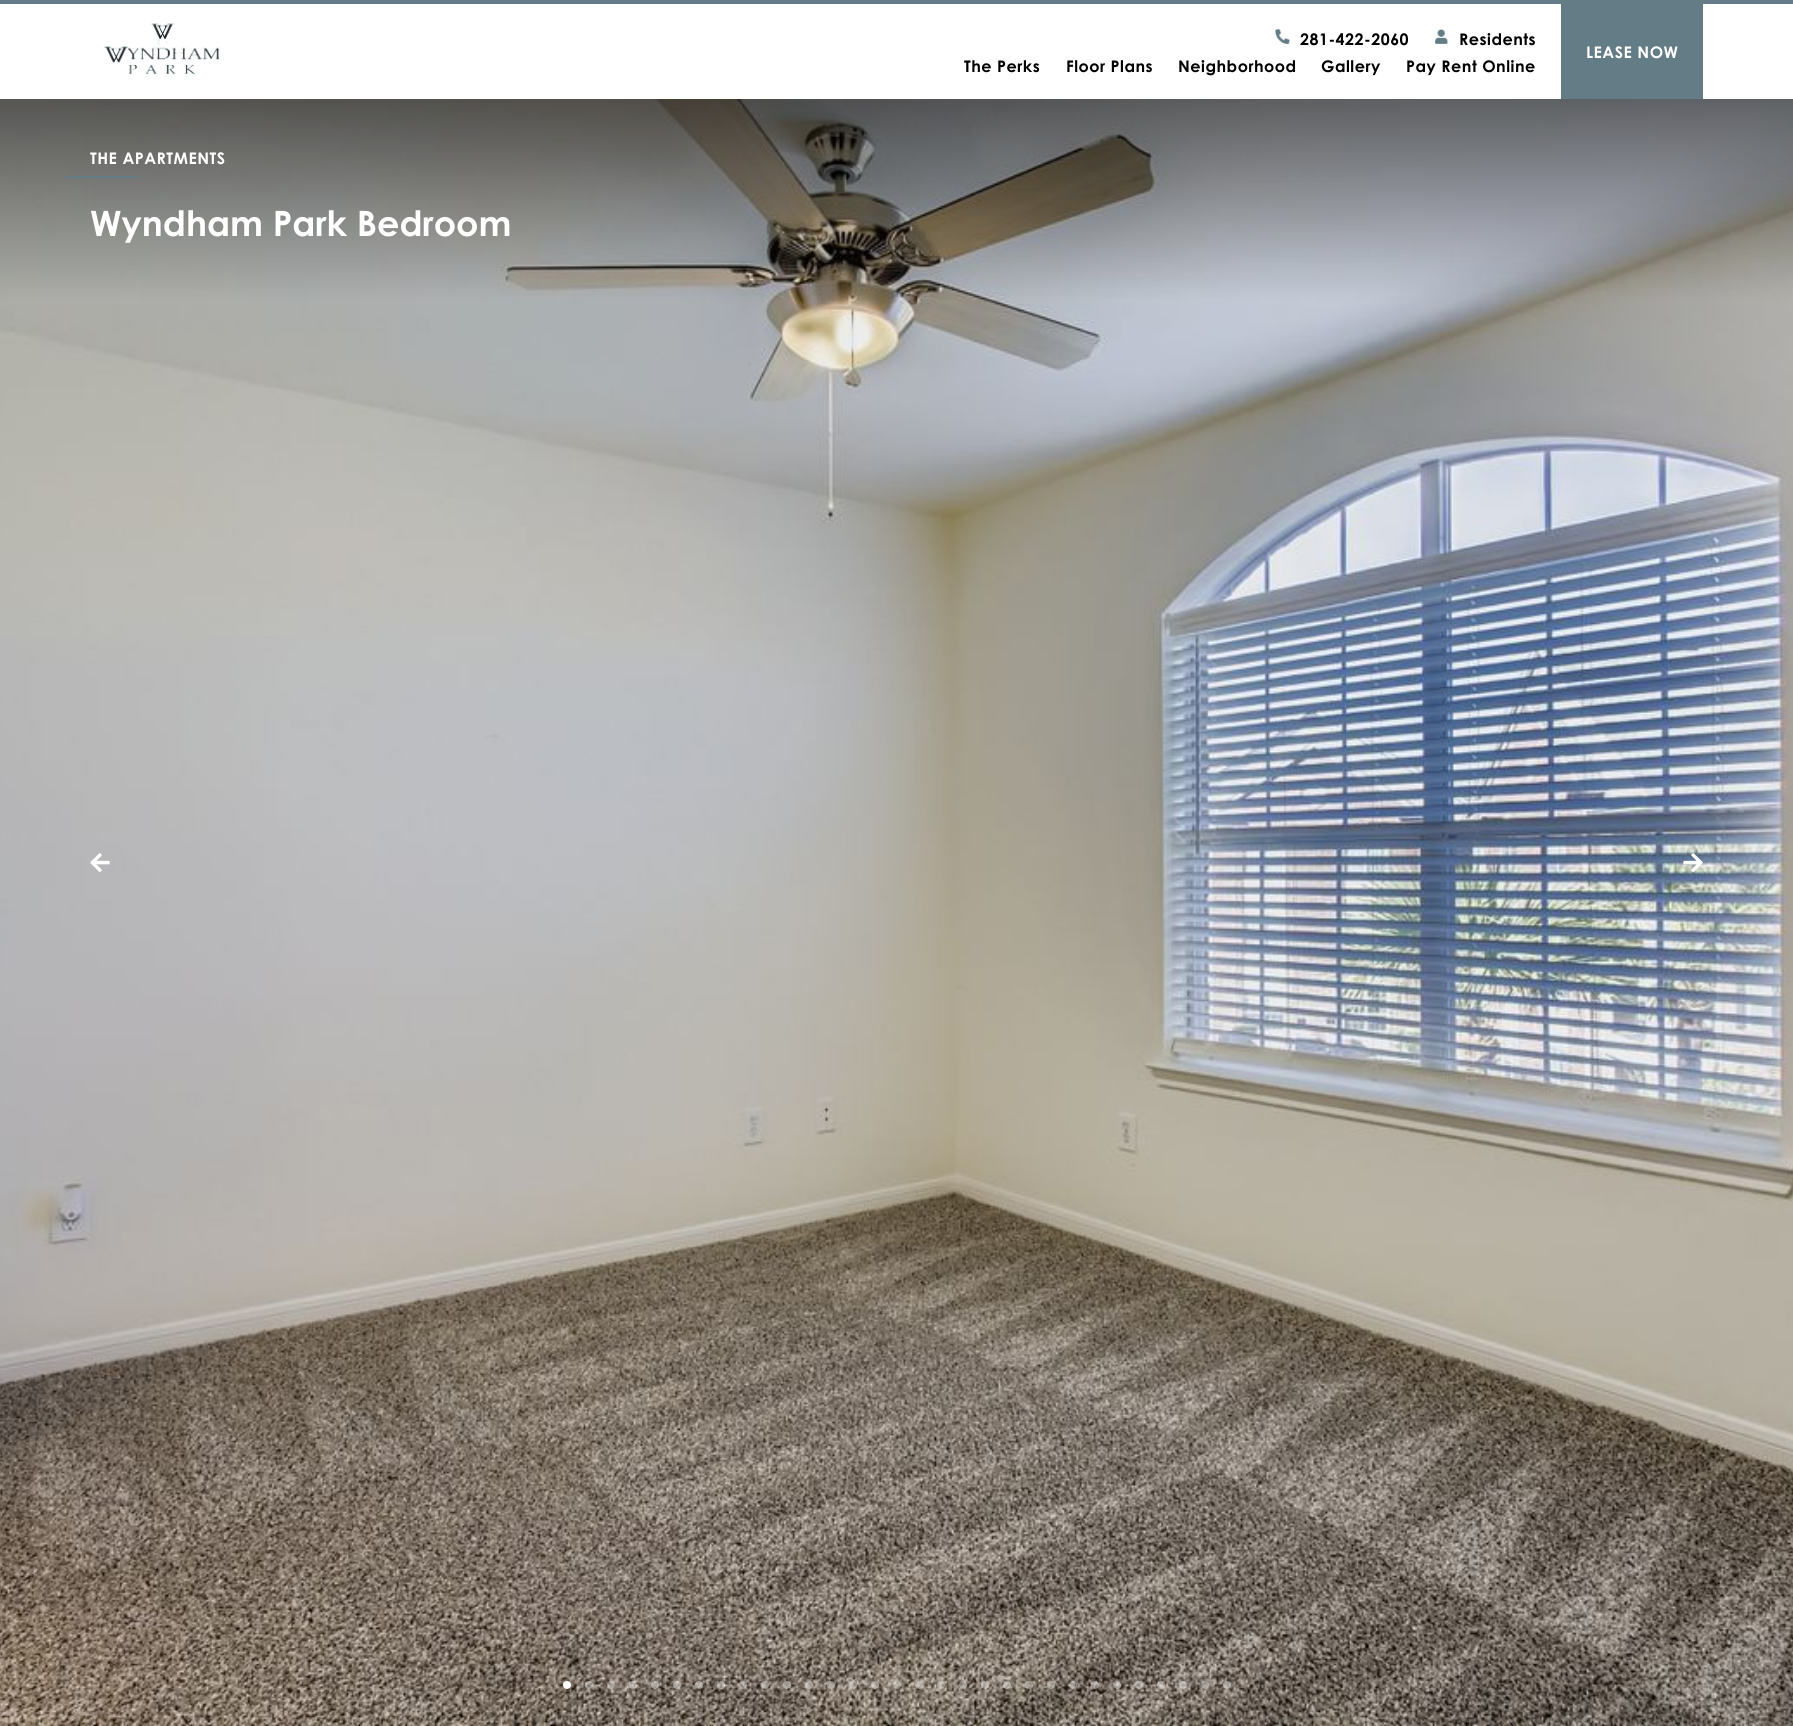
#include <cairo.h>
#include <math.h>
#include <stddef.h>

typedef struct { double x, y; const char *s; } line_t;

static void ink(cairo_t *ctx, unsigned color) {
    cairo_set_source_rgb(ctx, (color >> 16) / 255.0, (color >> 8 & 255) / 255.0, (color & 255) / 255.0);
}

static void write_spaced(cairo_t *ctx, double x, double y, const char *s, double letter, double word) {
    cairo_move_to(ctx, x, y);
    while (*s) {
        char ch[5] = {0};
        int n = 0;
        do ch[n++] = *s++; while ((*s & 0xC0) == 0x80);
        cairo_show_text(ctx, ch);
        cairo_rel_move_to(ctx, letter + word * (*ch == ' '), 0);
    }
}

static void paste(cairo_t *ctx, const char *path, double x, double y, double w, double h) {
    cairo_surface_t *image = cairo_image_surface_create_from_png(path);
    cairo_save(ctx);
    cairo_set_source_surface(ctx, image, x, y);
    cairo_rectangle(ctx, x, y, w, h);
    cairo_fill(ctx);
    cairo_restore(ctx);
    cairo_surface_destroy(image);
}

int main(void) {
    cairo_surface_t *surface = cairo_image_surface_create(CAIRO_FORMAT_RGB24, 1793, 1726);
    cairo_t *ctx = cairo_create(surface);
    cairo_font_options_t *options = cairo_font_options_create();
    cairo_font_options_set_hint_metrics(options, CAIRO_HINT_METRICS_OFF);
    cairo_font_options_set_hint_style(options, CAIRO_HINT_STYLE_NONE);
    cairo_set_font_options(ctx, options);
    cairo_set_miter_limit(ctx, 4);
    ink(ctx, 0xFFFFFF);
    cairo_paint(ctx);
    ink(ctx, 0x647C86);
    cairo_rectangle(ctx, 0, 0, 1793, 4);
    cairo_fill(ctx);
    paste(ctx, "media/1.png", 104, 23, 116, 52);
    paste(ctx, "media/2.png", 1275, 29, 15, 15);
    cairo_select_font_face(ctx, "Century Gothic", CAIRO_FONT_SLANT_NORMAL, CAIRO_FONT_WEIGHT_BOLD);
    cairo_set_font_size(ctx, 16);
    ink(ctx, 0x000000);
    write_spaced(ctx, 1300, 45, "281-422-2060", 0.5, 0);
    paste(ctx, "media/3.png", 1434, 29, 15, 15);
    {
        static const line_t items[] = {
            {1459, 45, "Residents"},
            {964, 72, "The Perks"},
            {1066, 72, "Floor Plans"},
            {1178, 72, "Neighborhood"},
            {1321, 72, "Gallery"},
            {1406, 72, "Pay Rent Online"},
        };
        for (size_t i = 0; i < sizeof items / sizeof *items; i++) {
            write_spaced(ctx, items[i].x, items[i].y, items[i].s, 0.5, 0);
        }
    }
    ink(ctx, 0x647C86);
    cairo_rectangle(ctx, 1561, 4, 142, 95);
    cairo_fill(ctx);
    ink(ctx, 0xFFFFFF);
    write_spaced(ctx, 1586, 58, "LEASE NOW", 0.5, 0);
    paste(ctx, "media/4.png", 0, 99, 1793, 1627);
    write_spaced(ctx, 90, 164, "THE APARTMENTS", 0.5, 0);
    ink(ctx, 0x647C86);
    cairo_rectangle(ctx, 65, 176, 75, 2);
    cairo_fill(ctx);
    cairo_set_font_size(ctx, 35);
    ink(ctx, 0xFFFFFF);
    cairo_move_to(ctx, 90, 236);
    cairo_show_text(ctx, "Wyndham Park Bedroom");
    paste(ctx, "media/5.png", 90, 853, 20, 19);
    paste(ctx, "media/6.png", 1683, 853, 20, 19);
    cairo_arc(ctx, 567, 1685, 4, 0, 2 * M_PI);
    cairo_fill(ctx);
    cairo_set_source_rgba(ctx, 1, 1, 1, 0.4);
    cairo_arc(ctx, 589, 1685, 4, 0, 2 * M_PI);
    cairo_fill(ctx);
    cairo_arc(ctx, 611, 1685, 4, 0, 2 * M_PI);
    cairo_fill(ctx);
    cairo_arc(ctx, 633, 1685, 4, 0, 2 * M_PI);
    cairo_fill(ctx);
    cairo_arc(ctx, 655, 1685, 4, 0, 2 * M_PI);
    cairo_fill(ctx);
    cairo_arc(ctx, 677, 1685, 4, 0, 2 * M_PI);
    cairo_fill(ctx);
    cairo_arc(ctx, 699, 1685, 4, 0, 2 * M_PI);
    cairo_fill(ctx);
    cairo_arc(ctx, 721, 1685, 4, 0, 2 * M_PI);
    cairo_fill(ctx);
    cairo_arc(ctx, 743, 1685, 4, 0, 2 * M_PI);
    cairo_fill(ctx);
    cairo_arc(ctx, 765, 1685, 4, 0, 2 * M_PI);
    cairo_fill(ctx);
    cairo_arc(ctx, 787, 1685, 4, 0, 2 * M_PI);
    cairo_fill(ctx);
    cairo_arc(ctx, 809, 1685, 4, 0, 2 * M_PI);
    cairo_fill(ctx);
    cairo_arc(ctx, 831, 1685, 4, 0, 2 * M_PI);
    cairo_fill(ctx);
    cairo_arc(ctx, 853, 1685, 4, 0, 2 * M_PI);
    cairo_fill(ctx);
    cairo_arc(ctx, 875, 1685, 4, 0, 2 * M_PI);
    cairo_fill(ctx);
    cairo_arc(ctx, 897, 1685, 4, 0, 2 * M_PI);
    cairo_fill(ctx);
    cairo_arc(ctx, 919, 1685, 4, 0, 2 * M_PI);
    cairo_fill(ctx);
    cairo_arc(ctx, 941, 1685, 4, 0, 2 * M_PI);
    cairo_fill(ctx);
    cairo_arc(ctx, 963, 1685, 4, 0, 2 * M_PI);
    cairo_fill(ctx);
    cairo_arc(ctx, 985, 1685, 4, 0, 2 * M_PI);
    cairo_fill(ctx);
    cairo_arc(ctx, 1007, 1685, 4, 0, 2 * M_PI);
    cairo_fill(ctx);
    cairo_arc(ctx, 1029, 1685, 4, 0, 2 * M_PI);
    cairo_fill(ctx);
    cairo_arc(ctx, 1051, 1685, 4, 0, 2 * M_PI);
    cairo_fill(ctx);
    cairo_arc(ctx, 1073, 1685, 4, 0, 2 * M_PI);
    cairo_fill(ctx);
    cairo_arc(ctx, 1095, 1685, 4, 0, 2 * M_PI);
    cairo_fill(ctx);
    cairo_arc(ctx, 1117, 1685, 4, 0, 2 * M_PI);
    cairo_fill(ctx);
    cairo_arc(ctx, 1139, 1685, 4, 0, 2 * M_PI);
    cairo_fill(ctx);
    cairo_arc(ctx, 1161, 1685, 4, 0, 2 * M_PI);
    cairo_fill(ctx);
    cairo_arc(ctx, 1183, 1685, 4, 0, 2 * M_PI);
    cairo_fill(ctx);
    cairo_arc(ctx, 1205, 1685, 4, 0, 2 * M_PI);
    cairo_fill(ctx);
    cairo_arc(ctx, 1227, 1685, 4, 0, 2 * M_PI);
    cairo_fill(ctx);
    cairo_surface_write_to_png(surface, "image.png");
    cairo_font_options_destroy(options);
    cairo_destroy(ctx);
    cairo_surface_destroy(surface);
    return 0;
}
